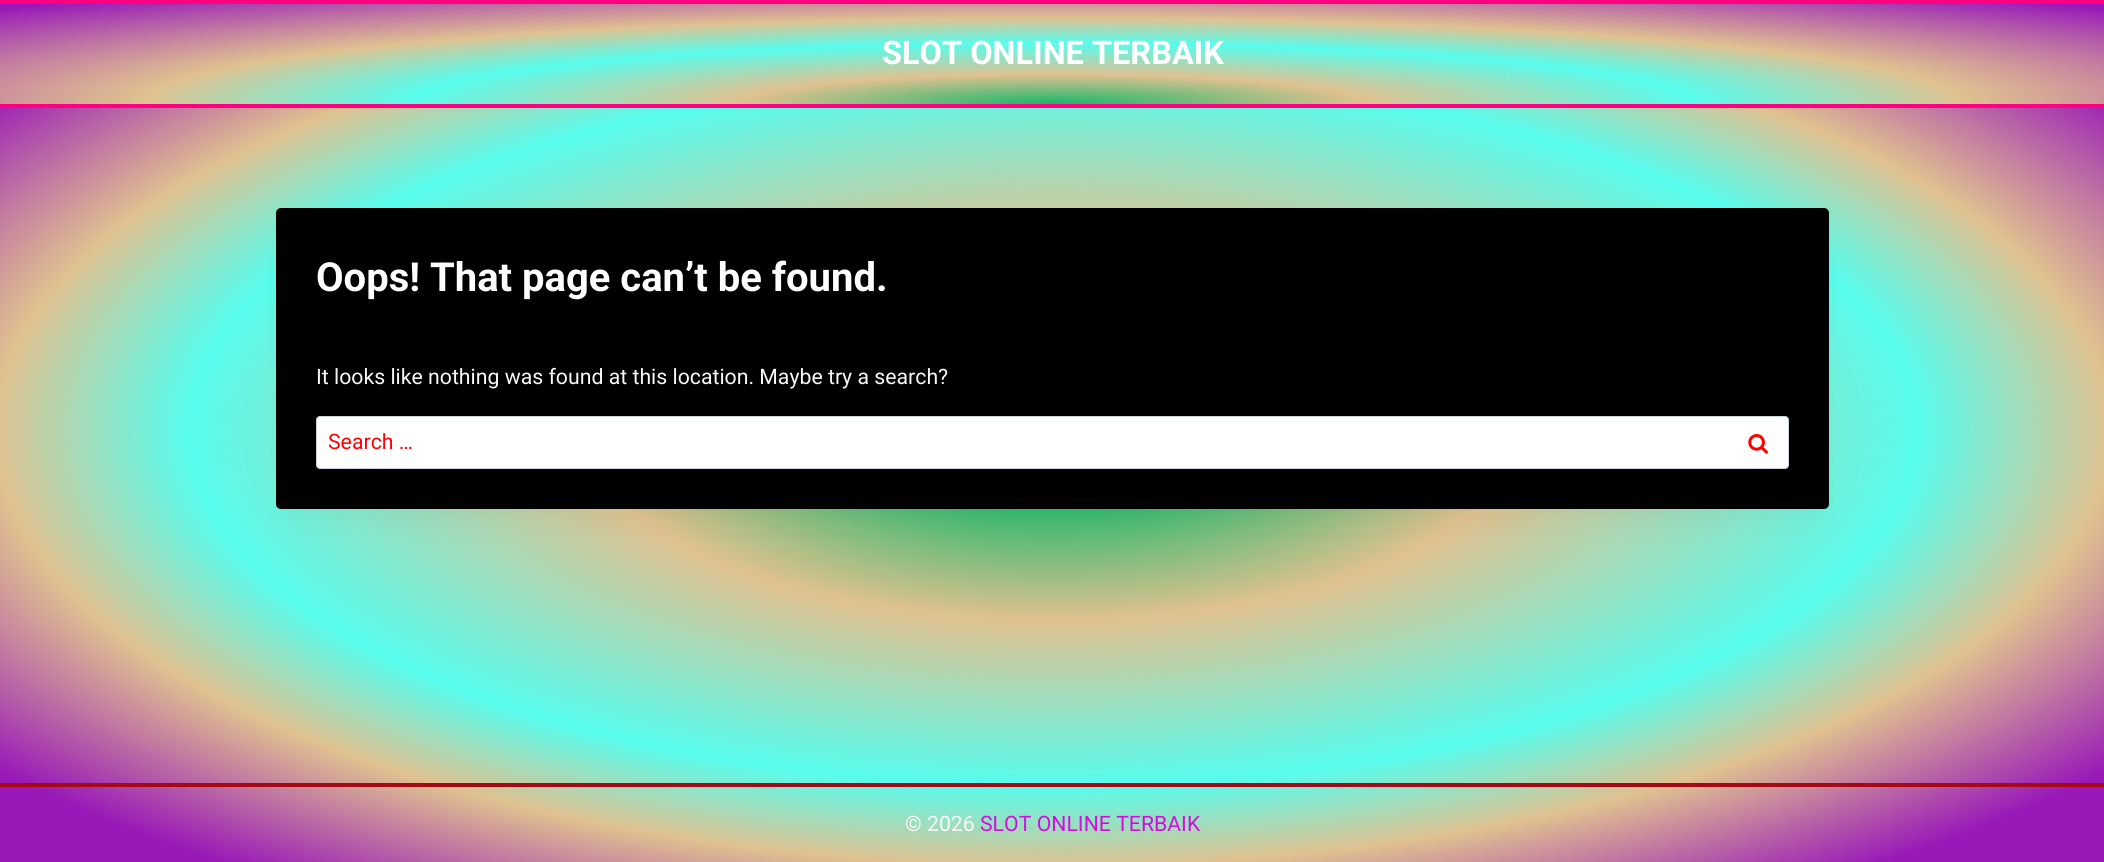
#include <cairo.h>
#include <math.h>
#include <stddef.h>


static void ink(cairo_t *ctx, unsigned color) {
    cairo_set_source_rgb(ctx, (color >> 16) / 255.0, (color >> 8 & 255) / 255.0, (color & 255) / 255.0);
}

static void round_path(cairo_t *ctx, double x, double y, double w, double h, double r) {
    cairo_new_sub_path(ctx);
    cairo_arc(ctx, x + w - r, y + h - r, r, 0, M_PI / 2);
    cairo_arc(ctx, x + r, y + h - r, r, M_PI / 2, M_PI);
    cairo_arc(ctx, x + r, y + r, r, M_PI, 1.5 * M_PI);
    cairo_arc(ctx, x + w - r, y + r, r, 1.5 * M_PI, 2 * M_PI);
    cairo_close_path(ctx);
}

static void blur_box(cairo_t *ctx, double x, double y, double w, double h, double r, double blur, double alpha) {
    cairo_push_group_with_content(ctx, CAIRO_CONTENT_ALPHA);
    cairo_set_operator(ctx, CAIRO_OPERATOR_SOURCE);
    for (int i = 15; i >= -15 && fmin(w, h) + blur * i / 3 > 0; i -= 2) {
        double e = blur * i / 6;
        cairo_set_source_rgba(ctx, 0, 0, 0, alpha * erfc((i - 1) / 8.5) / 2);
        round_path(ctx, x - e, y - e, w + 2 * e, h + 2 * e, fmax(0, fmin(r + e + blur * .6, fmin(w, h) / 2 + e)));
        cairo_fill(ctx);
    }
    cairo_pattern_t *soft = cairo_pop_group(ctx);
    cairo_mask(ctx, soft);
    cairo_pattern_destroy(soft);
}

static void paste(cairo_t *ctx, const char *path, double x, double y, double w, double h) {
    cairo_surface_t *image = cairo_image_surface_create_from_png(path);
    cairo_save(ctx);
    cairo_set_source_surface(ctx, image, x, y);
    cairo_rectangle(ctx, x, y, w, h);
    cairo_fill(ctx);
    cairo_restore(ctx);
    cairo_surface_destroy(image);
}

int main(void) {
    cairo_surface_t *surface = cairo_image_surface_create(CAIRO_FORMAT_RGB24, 2104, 862);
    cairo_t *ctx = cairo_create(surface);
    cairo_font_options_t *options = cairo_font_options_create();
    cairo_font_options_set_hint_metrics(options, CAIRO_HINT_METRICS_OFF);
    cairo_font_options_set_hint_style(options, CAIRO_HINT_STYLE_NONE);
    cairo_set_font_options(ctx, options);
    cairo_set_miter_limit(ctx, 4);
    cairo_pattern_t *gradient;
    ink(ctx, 0xFFFFFF);
    cairo_paint(ctx);
    gradient = cairo_pattern_create_radial(0, 0, 0, 0, 0, 1);
    cairo_pattern_set_matrix(gradient, &(cairo_matrix_t){1.0 / 1488, 0, 0, 1.0 / 610, -1.0 * 1053 / 1488, -1.0 * 431 / 610});
    cairo_pattern_add_color_stop_rgba(gradient, 0.1, 0.094, 0.722, 0.416, 1);
    cairo_pattern_add_color_stop_rgba(gradient, 0.31, 0.878, 0.757, 0.565, 1);
    cairo_pattern_add_color_stop_rgba(gradient, 0.58, 0.341, 0.988, 0.929, 1);
    cairo_pattern_add_color_stop_rgba(gradient, 0.71, 0.878, 0.757, 0.565, 1);
    cairo_pattern_add_color_stop_rgba(gradient, 0.9, 0.596, 0.094, 0.722, 1);
    cairo_set_source(ctx, gradient);
    cairo_pattern_destroy(gradient);
    cairo_rectangle(ctx, 0, 108, 2104, 754);
    cairo_fill(ctx);
    gradient = cairo_pattern_create_radial(0, 0, 0, 0, 0, 1);
    cairo_pattern_set_matrix(gradient, &(cairo_matrix_t){1.0 / 1488, 0, 0, 1.0 / 141, -1.0 * 1053 / 1488, -1.0 * 104 / 141});
    cairo_pattern_add_color_stop_rgba(gradient, 0, 0.094, 0.722, 0.416, 1);
    cairo_pattern_add_color_stop_rgba(gradient, 0.21, 0.878, 0.757, 0.565, 1);
    cairo_pattern_add_color_stop_rgba(gradient, 0.43, 0.341, 0.988, 0.929, 1);
    cairo_pattern_add_color_stop_rgba(gradient, 0.61, 0.878, 0.757, 0.565, 1);
    cairo_pattern_add_color_stop_rgba(gradient, 0.98, 0.596, 0.094, 0.722, 1);
    cairo_set_source(ctx, gradient);
    cairo_pattern_destroy(gradient);
    cairo_rectangle(ctx, 0, 4, 2104, 100);
    cairo_fill(ctx);
    ink(ctx, 0xFF0081);
    cairo_rectangle(ctx, 0, 0, 2104, 4);
    cairo_fill(ctx);
    cairo_rectangle(ctx, 0, 104, 2104, 4);
    cairo_fill(ctx);
    cairo_select_font_face(ctx, "Roboto", CAIRO_FONT_SLANT_NORMAL, CAIRO_FONT_WEIGHT_BOLD);
    cairo_set_font_size(ctx, 32.5);
    ink(ctx, 0xFFFFFF);
    cairo_move_to(ctx, 882, 64);
    cairo_show_text(ctx, "SLOT ONLINE TERBAIK");
    ink(ctx, 0x000000);
    blur_box(ctx, 289, 239, 1527, 276, 0, 15.5, 0.05);
    ink(ctx, 0x000000);
    round_path(ctx, 276, 208, 1553, 301, 5);
    cairo_fill(ctx);
    cairo_set_font_size(ctx, 40);
    ink(ctx, 0xFFFFFF);
    cairo_move_to(ctx, 316, 291);
    cairo_show_text(ctx, "Oops! That page can’t be found.");
    cairo_select_font_face(ctx, "Roboto", CAIRO_FONT_SLANT_NORMAL, CAIRO_FONT_WEIGHT_NORMAL);
    cairo_set_font_size(ctx, 21.25);
    ink(ctx, 0xF8F8F8);
    cairo_move_to(ctx, 316, 384);
    cairo_show_text(ctx, "It looks like nothing was found at this location. Maybe try a search?");
    ink(ctx, 0xFFFFFF);
    round_path(ctx, 316.5, 416.5, 1472, 52, 3.5);
    cairo_fill_preserve(ctx);
    ink(ctx, 0xCBD5E0);
    cairo_set_line_width(ctx, 1);
    cairo_stroke(ctx);
    ink(ctx, 0xFF0004);
    cairo_move_to(ctx, 328, 449);
    cairo_show_text(ctx, "Search …");
    paste(ctx, "media/1.png", 1748, 434, 20, 20);
    ink(ctx, 0xA50915);
    cairo_rectangle(ctx, 0, 783, 2104, 4);
    cairo_fill(ctx);
    ink(ctx, 0xF8F8F8);
    cairo_move_to(ctx, 905, 831);
    cairo_show_text(ctx, "© 2026");
    ink(ctx, 0xD40CDF);
    cairo_move_to(ctx, 980, 831);
    cairo_show_text(ctx, "SLOT ONLINE TERBAIK");
    cairo_surface_write_to_png(surface, "image.png");
    cairo_font_options_destroy(options);
    cairo_destroy(ctx);
    cairo_surface_destroy(surface);
    return 0;
}
